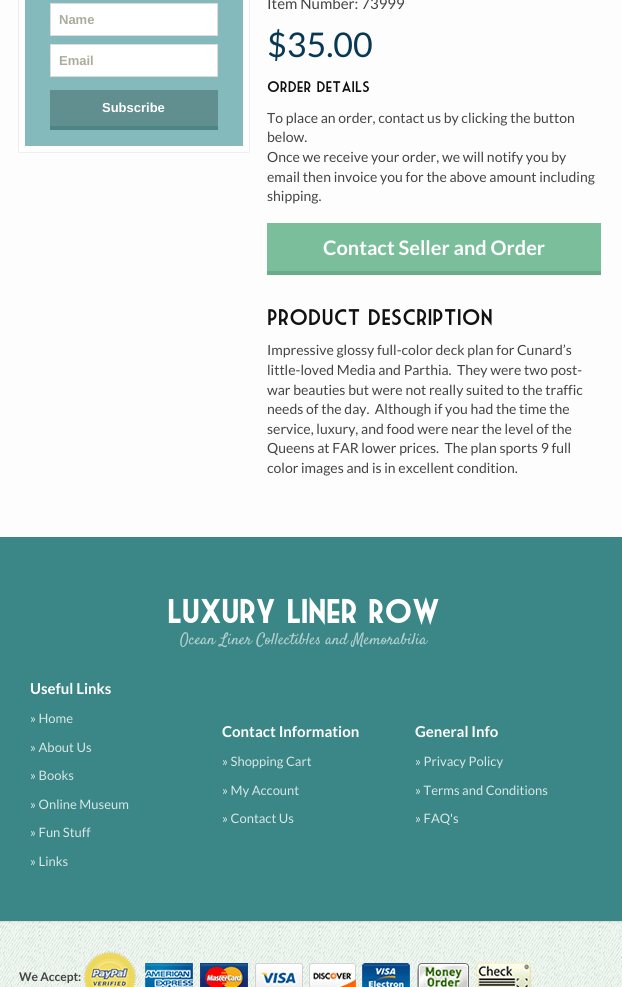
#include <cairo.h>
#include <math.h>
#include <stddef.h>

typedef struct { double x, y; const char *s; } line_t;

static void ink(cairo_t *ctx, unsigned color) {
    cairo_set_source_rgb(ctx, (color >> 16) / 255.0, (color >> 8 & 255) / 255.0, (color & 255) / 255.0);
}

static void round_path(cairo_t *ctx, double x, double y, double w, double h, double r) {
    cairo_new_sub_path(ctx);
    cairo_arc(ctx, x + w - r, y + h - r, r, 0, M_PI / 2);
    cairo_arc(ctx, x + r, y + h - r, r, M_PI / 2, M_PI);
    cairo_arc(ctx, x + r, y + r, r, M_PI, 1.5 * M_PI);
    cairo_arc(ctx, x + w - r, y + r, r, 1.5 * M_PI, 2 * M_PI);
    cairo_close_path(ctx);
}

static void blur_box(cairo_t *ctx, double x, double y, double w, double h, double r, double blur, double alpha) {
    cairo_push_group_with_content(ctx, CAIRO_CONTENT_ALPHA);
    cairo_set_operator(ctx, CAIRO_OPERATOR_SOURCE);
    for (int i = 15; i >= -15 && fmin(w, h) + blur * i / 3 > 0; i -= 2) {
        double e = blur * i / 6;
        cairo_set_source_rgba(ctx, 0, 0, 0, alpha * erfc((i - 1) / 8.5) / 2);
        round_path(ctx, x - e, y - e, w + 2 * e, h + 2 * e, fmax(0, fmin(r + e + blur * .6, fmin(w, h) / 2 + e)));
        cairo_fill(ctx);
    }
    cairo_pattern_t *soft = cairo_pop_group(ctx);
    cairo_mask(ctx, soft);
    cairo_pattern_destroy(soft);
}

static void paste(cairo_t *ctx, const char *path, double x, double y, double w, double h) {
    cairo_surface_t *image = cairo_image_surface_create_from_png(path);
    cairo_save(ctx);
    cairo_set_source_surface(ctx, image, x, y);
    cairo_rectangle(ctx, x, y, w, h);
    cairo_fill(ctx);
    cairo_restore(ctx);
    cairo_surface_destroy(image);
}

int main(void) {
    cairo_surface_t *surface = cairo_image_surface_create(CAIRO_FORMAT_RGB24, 622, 987);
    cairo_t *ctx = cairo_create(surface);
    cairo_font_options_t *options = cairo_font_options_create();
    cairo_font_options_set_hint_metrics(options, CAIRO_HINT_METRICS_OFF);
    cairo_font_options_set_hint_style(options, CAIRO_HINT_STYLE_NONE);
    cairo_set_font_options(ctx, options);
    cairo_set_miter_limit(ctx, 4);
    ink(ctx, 0xFFFFFF);
    cairo_paint(ctx);
    paste(ctx, "media/1.png", 0, 921, 622, 66);
    ink(ctx, 0x000000);
    blur_box(ctx, 0, -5, 622, 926, 0, 1.5, 0.2);
    ink(ctx, 0xFCFDFC);
    cairo_rectangle(ctx, 0, 0, 622, 537);
    cairo_fill(ctx);
    ink(ctx, 0x000000);
    blur_box(ctx, 19, -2, 230, 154, 0, 0.5, 0.25);
    ink(ctx, 0x85BABC);
    cairo_rectangle(ctx, 22, -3, 224, 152);
    cairo_fill_preserve(ctx);
    ink(ctx, 0xFFFFFF);
    cairo_set_line_width(ctx, 6);
    cairo_stroke(ctx);
    cairo_rectangle(ctx, 50.5, 3.5, 167, 32);
    cairo_fill_preserve(ctx);
    ink(ctx, 0xDDDDDD);
    cairo_set_line_width(ctx, 1);
    cairo_stroke(ctx);
    cairo_select_font_face(ctx, "Liberation Sans", CAIRO_FONT_SLANT_NORMAL, CAIRO_FONT_WEIGHT_BOLD);
    cairo_set_font_size(ctx, 13);
    ink(ctx, 0xACAC9D);
    cairo_move_to(ctx, 59, 24);
    cairo_show_text(ctx, "Name");
    ink(ctx, 0xFFFFFF);
    cairo_rectangle(ctx, 50.5, 44.5, 167, 32);
    cairo_fill_preserve(ctx);
    ink(ctx, 0xDDDDDD);
    cairo_stroke(ctx);
    ink(ctx, 0xACAC9D);
    cairo_move_to(ctx, 59, 65);
    cairo_show_text(ctx, "Email");
    ink(ctx, 0x618F8F);
    cairo_rectangle(ctx, 50, 90, 168, 36);
    cairo_fill(ctx);
    ink(ctx, 0x4C8585);
    cairo_rectangle(ctx, 50, 126, 168, 4);
    cairo_fill(ctx);
    ink(ctx, 0xFFFFFF);
    cairo_move_to(ctx, 102, 112);
    cairo_show_text(ctx, "Subscribe");
    cairo_select_font_face(ctx, "Lato", CAIRO_FONT_SLANT_NORMAL, CAIRO_FONT_WEIGHT_NORMAL);
    cairo_set_font_size(ctx, 15);
    ink(ctx, 0x444444);
    cairo_move_to(ctx, 267, 9);
    cairo_show_text(ctx, "Item Number: 73999");
    cairo_set_font_size(ctx, 34);
    ink(ctx, 0x093855);
    cairo_move_to(ctx, 267, 57);
    cairo_show_text(ctx, "$35.00");
    cairo_select_font_face(ctx, "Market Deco", CAIRO_FONT_SLANT_NORMAL, CAIRO_FONT_WEIGHT_NORMAL);
    cairo_set_font_size(ctx, 15);
    ink(ctx, 0x111111);
    cairo_move_to(ctx, 267, 92);
    cairo_show_text(ctx, "Order Details");
    cairo_select_font_face(ctx, "Lato", CAIRO_FONT_SLANT_NORMAL, CAIRO_FONT_WEIGHT_NORMAL);
    cairo_set_font_size(ctx, 14);
    ink(ctx, 0x444444);
    {
        static const line_t items[] = {
            {267, 123, "To place an order, contact us by clicking the button"},
            {267, 142, "below."},
            {267, 162, "Once we receive your order, we will notify you by"},
            {267, 182, "email then invoice you for the above amount including"},
            {267, 201, "shipping."},
        };
        for (size_t i = 0; i < sizeof items / sizeof *items; i++) {
            cairo_move_to(ctx, items[i].x, items[i].y);
            cairo_show_text(ctx, items[i].s);
        }
    }
    ink(ctx, 0x7ABE9B);
    cairo_rectangle(ctx, 267, 223, 334, 48);
    cairo_fill(ctx);
    ink(ctx, 0x6DAA8A);
    cairo_rectangle(ctx, 267, 271, 334, 4);
    cairo_fill(ctx);
    cairo_select_font_face(ctx, "Lato", CAIRO_FONT_SLANT_NORMAL, CAIRO_FONT_WEIGHT_BOLD);
    cairo_set_font_size(ctx, 20);
    ink(ctx, 0xFFFFFF);
    cairo_move_to(ctx, 323, 255);
    cairo_show_text(ctx, "Contact Seller and Order");
    cairo_select_font_face(ctx, "Market Deco", CAIRO_FONT_SLANT_NORMAL, CAIRO_FONT_WEIGHT_NORMAL);
    cairo_set_font_size(ctx, 22);
    ink(ctx, 0x111111);
    cairo_move_to(ctx, 267, 325);
    cairo_show_text(ctx, "Product Description");
    cairo_select_font_face(ctx, "Lato", CAIRO_FONT_SLANT_NORMAL, CAIRO_FONT_WEIGHT_NORMAL);
    cairo_set_font_size(ctx, 14);
    ink(ctx, 0x444444);
    {
        static const line_t items[] = {
            {267, 355, "Impressive glossy full-color deck plan for Cunard’s"},
            {267, 375, "little-loved Media and Parthia.  They were two post-"},
            {267, 395, "war beauties but were not really suited to the traffic"},
            {267, 414, "needs of the day.  Although if you had the time the"},
            {267, 434, "service, luxury, and food were near the level of the"},
            {267, 453, "Queens at FAR lower prices.  The plan sports 9 full"},
            {267, 473, "color images and is in excellent condition."},
        };
        for (size_t i = 0; i < sizeof items / sizeof *items; i++) {
            cairo_move_to(ctx, items[i].x, items[i].y);
            cairo_show_text(ctx, items[i].s);
        }
    }
    ink(ctx, 0x3B8686);
    cairo_rectangle(ctx, 0, 537, 622, 384);
    cairo_fill(ctx);
    cairo_select_font_face(ctx, "Market Deco", CAIRO_FONT_SLANT_NORMAL, CAIRO_FONT_WEIGHT_BOLD);
    cairo_set_font_size(ctx, 32);
    ink(ctx, 0xFFFFFF);
    cairo_move_to(ctx, 167, 623);
    cairo_show_text(ctx, "Luxury Liner Row");
    cairo_select_font_face(ctx, "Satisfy", CAIRO_FONT_SLANT_NORMAL, CAIRO_FONT_WEIGHT_NORMAL);
    cairo_set_font_size(ctx, 16);
    ink(ctx, 0xB1CFCF);
    cairo_move_to(ctx, 180, 644);
    cairo_show_text(ctx, "Ocean Liner Collectibles and Memorabilia");
    cairo_select_font_face(ctx, "Lato", CAIRO_FONT_SLANT_NORMAL, CAIRO_FONT_WEIGHT_BOLD);
    cairo_set_font_size(ctx, 15);
    ink(ctx, 0xFFFFFF);
    cairo_move_to(ctx, 30, 694);
    cairo_show_text(ctx, "Useful Links");
    cairo_select_font_face(ctx, "Lato", CAIRO_FONT_SLANT_NORMAL, CAIRO_FONT_WEIGHT_NORMAL);
    cairo_set_font_size(ctx, 13);
    ink(ctx, 0xD8E7E7);
    {
        static const line_t items[] = {
            {30, 723, "» Home"},
            {30, 752, "» About Us"},
            {30, 780, "» Books"},
            {30, 809, "» Online Museum"},
            {30, 837, "» Fun Stuff"},
            {30, 866, "» Links"},
        };
        for (size_t i = 0; i < sizeof items / sizeof *items; i++) {
            cairo_move_to(ctx, items[i].x, items[i].y);
            cairo_show_text(ctx, items[i].s);
        }
    }
    cairo_select_font_face(ctx, "Lato", CAIRO_FONT_SLANT_NORMAL, CAIRO_FONT_WEIGHT_BOLD);
    cairo_set_font_size(ctx, 15);
    ink(ctx, 0xFFFFFF);
    cairo_move_to(ctx, 222, 737);
    cairo_show_text(ctx, "Contact Information");
    cairo_select_font_face(ctx, "Lato", CAIRO_FONT_SLANT_NORMAL, CAIRO_FONT_WEIGHT_NORMAL);
    cairo_set_font_size(ctx, 13);
    ink(ctx, 0xD8E7E7);
    {
        static const line_t items[] = {
            {222, 766, "» Shopping Cart"},
            {222, 795, "» My Account"},
            {222, 823, "» Contact Us"},
        };
        for (size_t i = 0; i < sizeof items / sizeof *items; i++) {
            cairo_move_to(ctx, items[i].x, items[i].y);
            cairo_show_text(ctx, items[i].s);
        }
    }
    cairo_select_font_face(ctx, "Lato", CAIRO_FONT_SLANT_NORMAL, CAIRO_FONT_WEIGHT_BOLD);
    cairo_set_font_size(ctx, 15);
    ink(ctx, 0xFFFFFF);
    cairo_move_to(ctx, 415, 737);
    cairo_show_text(ctx, "General Info");
    cairo_select_font_face(ctx, "Lato", CAIRO_FONT_SLANT_NORMAL, CAIRO_FONT_WEIGHT_NORMAL);
    cairo_set_font_size(ctx, 13);
    ink(ctx, 0xD8E7E7);
    {
        static const line_t items[] = {
            {415, 766, "» Privacy Policy"},
            {415, 795, "» Terms and Conditions"},
            {415, 823, "» FAQ's"},
        };
        for (size_t i = 0; i < sizeof items / sizeof *items; i++) {
            cairo_move_to(ctx, items[i].x, items[i].y);
            cairo_show_text(ctx, items[i].s);
        }
    }
    cairo_select_font_face(ctx, "Lato", CAIRO_FONT_SLANT_NORMAL, CAIRO_FONT_WEIGHT_BOLD);
    cairo_set_font_size(ctx, 12);
    ink(ctx, 0x444444);
    cairo_move_to(ctx, 19, 981);
    cairo_show_text(ctx, "We Accept:");
    paste(ctx, "media/2.png", 83, 951, 448, 36);
    cairo_surface_write_to_png(surface, "image.png");
    cairo_font_options_destroy(options);
    cairo_destroy(ctx);
    cairo_surface_destroy(surface);
    return 0;
}
